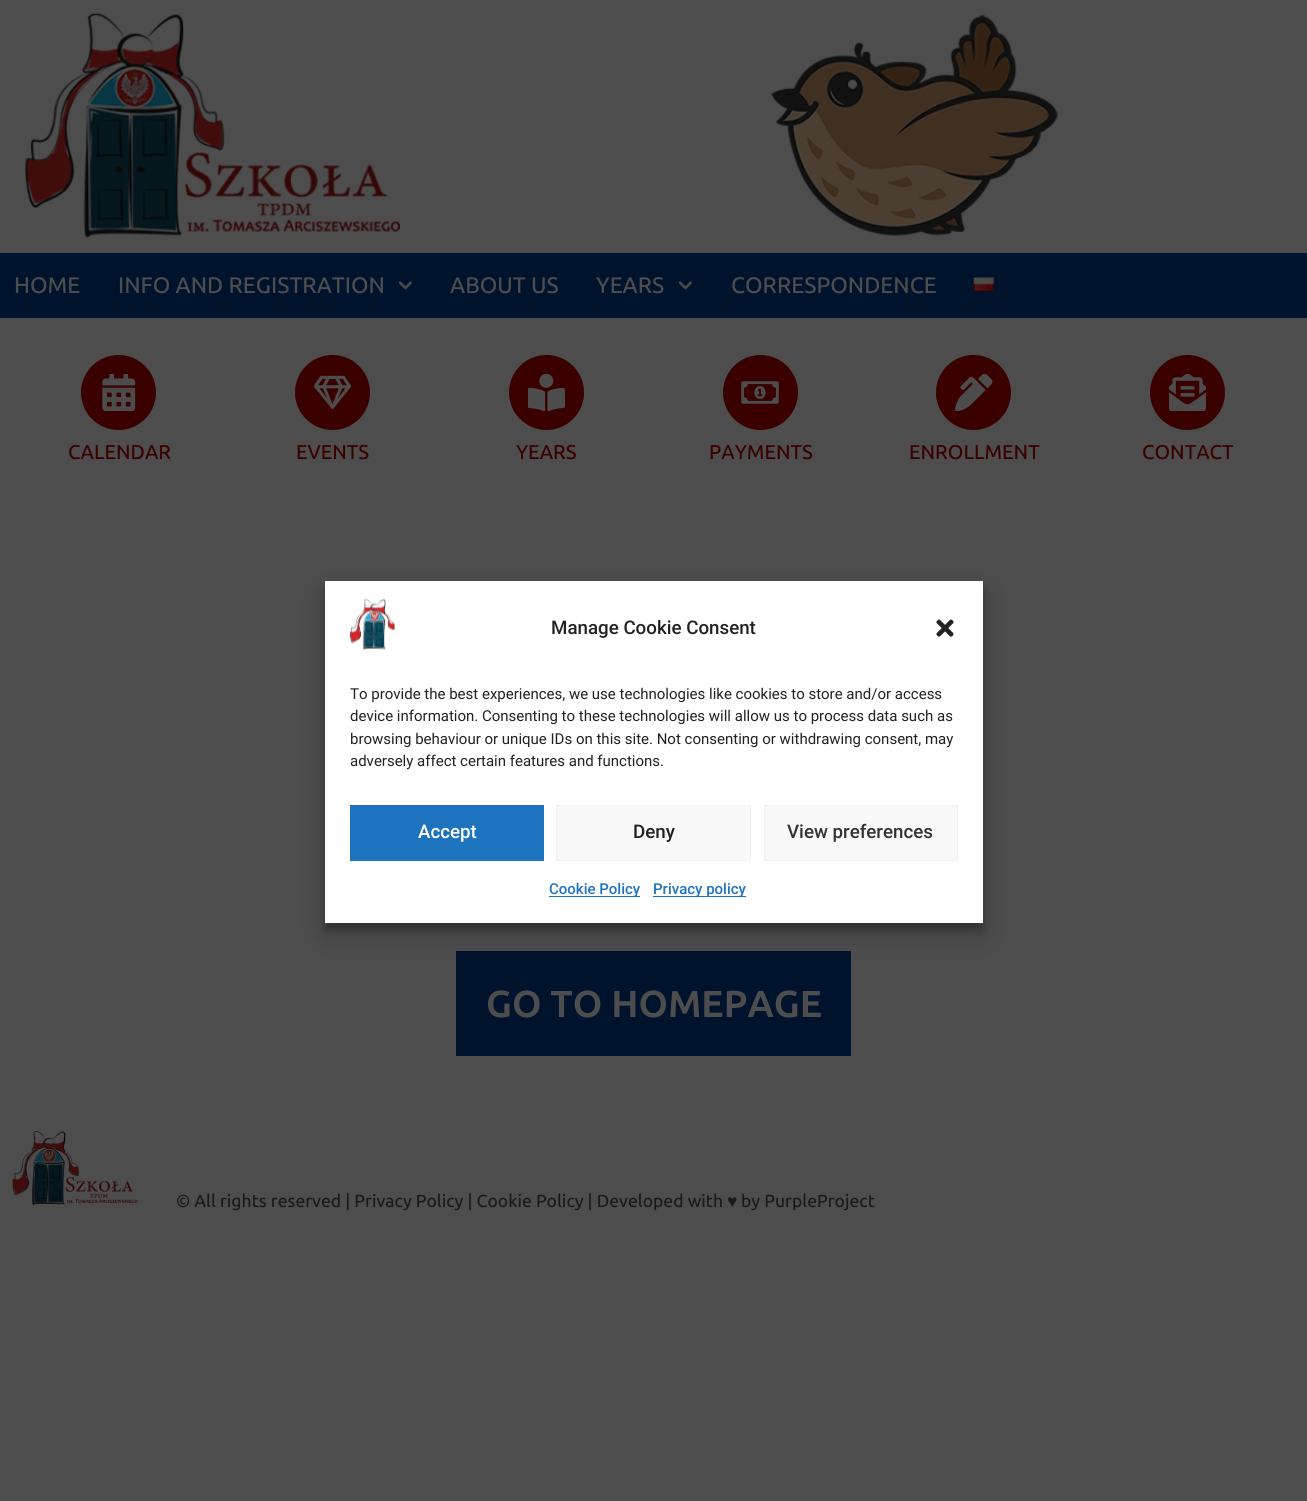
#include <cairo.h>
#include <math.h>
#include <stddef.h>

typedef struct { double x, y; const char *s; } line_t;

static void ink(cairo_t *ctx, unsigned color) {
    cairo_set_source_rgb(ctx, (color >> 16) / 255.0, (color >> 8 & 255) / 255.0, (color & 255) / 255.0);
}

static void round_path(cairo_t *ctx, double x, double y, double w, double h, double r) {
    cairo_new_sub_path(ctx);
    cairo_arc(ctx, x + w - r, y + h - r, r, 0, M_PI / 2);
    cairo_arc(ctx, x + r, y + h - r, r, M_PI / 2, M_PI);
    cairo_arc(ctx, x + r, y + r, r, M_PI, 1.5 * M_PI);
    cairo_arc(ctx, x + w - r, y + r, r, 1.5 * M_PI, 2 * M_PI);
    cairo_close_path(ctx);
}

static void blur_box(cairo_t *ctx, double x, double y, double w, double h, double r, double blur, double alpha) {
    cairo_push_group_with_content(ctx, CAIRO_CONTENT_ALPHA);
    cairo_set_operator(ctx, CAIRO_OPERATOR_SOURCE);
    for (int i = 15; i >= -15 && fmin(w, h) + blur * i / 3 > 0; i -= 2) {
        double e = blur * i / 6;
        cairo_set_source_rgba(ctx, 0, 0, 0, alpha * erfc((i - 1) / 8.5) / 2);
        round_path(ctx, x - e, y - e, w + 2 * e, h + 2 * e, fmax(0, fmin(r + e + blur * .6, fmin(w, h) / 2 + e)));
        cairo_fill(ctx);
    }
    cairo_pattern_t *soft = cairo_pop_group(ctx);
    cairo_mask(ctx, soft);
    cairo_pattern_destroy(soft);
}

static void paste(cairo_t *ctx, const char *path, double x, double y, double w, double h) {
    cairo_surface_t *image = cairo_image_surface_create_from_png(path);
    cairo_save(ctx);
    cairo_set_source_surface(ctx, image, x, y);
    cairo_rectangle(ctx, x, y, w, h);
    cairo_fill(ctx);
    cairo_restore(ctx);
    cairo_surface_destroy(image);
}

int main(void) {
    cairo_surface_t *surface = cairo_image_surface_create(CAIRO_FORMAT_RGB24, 1307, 1501);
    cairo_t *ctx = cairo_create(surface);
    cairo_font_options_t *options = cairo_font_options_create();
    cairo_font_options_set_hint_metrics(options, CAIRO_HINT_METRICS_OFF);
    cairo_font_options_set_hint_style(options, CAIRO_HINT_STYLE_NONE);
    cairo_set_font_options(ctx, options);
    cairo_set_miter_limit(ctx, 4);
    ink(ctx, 0x4D4D4D);
    cairo_paint(ctx);
    paste(ctx, "media/1.png", 25, 13, 375, 225);
    paste(ctx, "media/2.png", 770, 14, 288, 222);
    ink(ctx, 0x00132D);
    cairo_rectangle(ctx, 0, 253, 1307, 65);
    cairo_fill(ctx);
    cairo_select_font_face(ctx, "Ubuntu Medium", CAIRO_FONT_SLANT_NORMAL, CAIRO_FONT_WEIGHT_NORMAL);
    cairo_set_font_size(ctx, 22.5);
    ink(ctx, 0x4D4D4D);
    cairo_move_to(ctx, 14, 293);
    cairo_show_text(ctx, "HOME");
    cairo_move_to(ctx, 118, 293);
    cairo_show_text(ctx, "INFO AND REGISTRATION");
    paste(ctx, "media/3.png", 398, 281, 14, 9);
    cairo_move_to(ctx, 450, 293);
    cairo_show_text(ctx, "ABOUT US");
    cairo_move_to(ctx, 596, 293);
    cairo_show_text(ctx, "YEARS");
    paste(ctx, "media/3.png", 678, 281, 14, 9);
    cairo_move_to(ctx, 731, 293);
    cairo_show_text(ctx, "CORRESPONDENCE");
    paste(ctx, "media/4.png", 973, 277, 21, 15);
    ink(ctx, 0x3A0000);
    cairo_arc(ctx, 118.5, 392.5, 37.5, 0, 2 * M_PI);
    cairo_fill(ctx);
    paste(ctx, "media/5.png", 102, 374, 34, 37);
    cairo_set_font_size(ctx, 20);
    cairo_move_to(ctx, 68, 459);
    cairo_show_text(ctx, "CALENDAR");
    cairo_new_path(ctx);
    cairo_arc(ctx, 332.5, 392.5, 37.5, 0, 2 * M_PI);
    cairo_fill(ctx);
    paste(ctx, "media/6.png", 314, 375, 37, 35);
    cairo_move_to(ctx, 296, 459);
    cairo_show_text(ctx, "EVENTS");
    cairo_new_path(ctx);
    cairo_arc(ctx, 546.5, 392.5, 37.5, 0, 2 * M_PI);
    cairo_fill(ctx);
    paste(ctx, "media/7.png", 528, 374, 37, 37);
    cairo_move_to(ctx, 516, 459);
    cairo_show_text(ctx, "YEARS");
    cairo_new_path(ctx);
    cairo_arc(ctx, 760.5, 392.5, 37.5, 0, 2 * M_PI);
    cairo_fill(ctx);
    paste(ctx, "media/8.png", 741, 381, 38, 23);
    cairo_move_to(ctx, 709, 459);
    cairo_show_text(ctx, "PAYMENTS");
    cairo_new_path(ctx);
    cairo_arc(ctx, 973.5, 392.5, 37.5, 0, 2 * M_PI);
    cairo_fill(ctx);
    paste(ctx, "media/9.png", 955, 374, 38, 37);
    cairo_move_to(ctx, 909, 459);
    cairo_show_text(ctx, "ENROLLMENT");
    cairo_new_path(ctx);
    cairo_arc(ctx, 1187.5, 392.5, 37.5, 0, 2 * M_PI);
    cairo_fill(ctx);
    paste(ctx, "media/10.png", 1169, 374, 37, 37);
    cairo_move_to(ctx, 1142, 459);
    cairo_show_text(ctx, "CONTACT");
    ink(ctx, 0x00132D);
    cairo_rectangle(ctx, 456, 951, 395, 105);
    cairo_fill(ctx);
    cairo_select_font_face(ctx, "Ubuntu", CAIRO_FONT_SLANT_NORMAL, CAIRO_FONT_WEIGHT_BOLD);
    cairo_set_font_size(ctx, 37.5);
    ink(ctx, 0x4D4D4D);
    cairo_move_to(ctx, 486, 1017);
    cairo_show_text(ctx, "GO TO HOMEPAGE");
    ink(ctx, 0x000000);
    blur_box(ctx, 325, 589, 658, 341, 0, 4, 0.23);
    blur_box(ctx, 325, 594, 658, 341, 0, 12.5, 0.19);
    ink(ctx, 0xFFFFFF);
    cairo_rectangle(ctx, 325, 581, 658, 342);
    cairo_fill(ctx);
    paste(ctx, "media/11.png", 350, 598, 45, 52);
    cairo_select_font_face(ctx, "Roboto Medium", CAIRO_FONT_SLANT_NORMAL, CAIRO_FONT_WEIGHT_NORMAL);
    cairo_set_font_size(ctx, 18.75);
    ink(ctx, 0x222222);
    cairo_move_to(ctx, 551, 634);
    cairo_show_text(ctx, "Manage Cookie Consent");
    paste(ctx, "media/12.png", 936, 619, 18, 18);
    cairo_select_font_face(ctx, "Roboto", CAIRO_FONT_SLANT_NORMAL, CAIRO_FONT_WEIGHT_NORMAL);
    cairo_set_font_size(ctx, 15);
    {
        static const line_t items[] = {
            {350, 699, "To provide the best experiences, we use technologies like cookies to store and/or access"},
            {350, 721, "device information. Consenting to these technologies will allow us to process data such as"},
            {350, 744, "browsing behaviour or unique IDs on this site. Not consenting or withdrawing consent, may"},
            {350, 766, "adversely affect certain features and functions."},
        };
        for (size_t i = 0; i < sizeof items / sizeof *items; i++) {
            cairo_move_to(ctx, items[i].x, items[i].y);
            cairo_show_text(ctx, items[i].s);
        }
    }
    ink(ctx, 0x1E73BE);
    cairo_rectangle(ctx, 350, 805, 194, 56);
    cairo_fill(ctx);
    cairo_select_font_face(ctx, "Roboto Medium", CAIRO_FONT_SLANT_NORMAL, CAIRO_FONT_WEIGHT_NORMAL);
    cairo_set_font_size(ctx, 18.75);
    ink(ctx, 0xFFFFFF);
    cairo_move_to(ctx, 418, 838);
    cairo_show_text(ctx, "Accept");
    ink(ctx, 0xF9F9F9);
    cairo_rectangle(ctx, 556.5, 805.5, 194, 55);
    cairo_fill_preserve(ctx);
    ink(ctx, 0xF2F2F2);
    cairo_set_line_width(ctx, 1);
    cairo_stroke(ctx);
    ink(ctx, 0x222222);
    cairo_move_to(ctx, 633, 838);
    cairo_show_text(ctx, "Deny");
    ink(ctx, 0xF9F9F9);
    cairo_rectangle(ctx, 764.5, 805.5, 193, 55);
    cairo_fill_preserve(ctx);
    ink(ctx, 0xF2F2F2);
    cairo_stroke(ctx);
    ink(ctx, 0x333333);
    cairo_move_to(ctx, 787, 838);
    cairo_show_text(ctx, "View preferences");
    ink(ctx, 0x1E73BE);
    cairo_rectangle(ctx, 549, 896, 91, 1);
    cairo_fill(ctx);
    cairo_set_font_size(ctx, 15);
    cairo_move_to(ctx, 549, 894);
    cairo_show_text(ctx, "Cookie Policy");
    cairo_rectangle(ctx, 653, 896, 93, 1);
    cairo_fill(ctx);
    cairo_move_to(ctx, 653, 894);
    cairo_show_text(ctx, "Privacy policy");
    paste(ctx, "media/13.png", 12, 1131, 126, 74);
    cairo_select_font_face(ctx, "Ubuntu Medium", CAIRO_FONT_SLANT_NORMAL, CAIRO_FONT_WEIGHT_NORMAL);
    cairo_set_font_size(ctx, 17.5);
    ink(ctx, 0x1A1A1A);
    cairo_move_to(ctx, 176, 1207);
    cairo_show_text(ctx, "© All rights reserved | Privacy Policy | Cookie Policy | Developed with");
    cairo_select_font_face(ctx, "Liberation Sans", CAIRO_FONT_SLANT_NORMAL, CAIRO_FONT_WEIGHT_NORMAL);
    cairo_move_to(ctx, 727, 1207);
    cairo_show_text(ctx, "♥");
    cairo_select_font_face(ctx, "Ubuntu Medium", CAIRO_FONT_SLANT_NORMAL, CAIRO_FONT_WEIGHT_NORMAL);
    cairo_move_to(ctx, 741, 1207);
    cairo_show_text(ctx, "by PurpleProject");
    cairo_surface_write_to_png(surface, "image.png");
    cairo_font_options_destroy(options);
    cairo_destroy(ctx);
    cairo_surface_destroy(surface);
    return 0;
}
